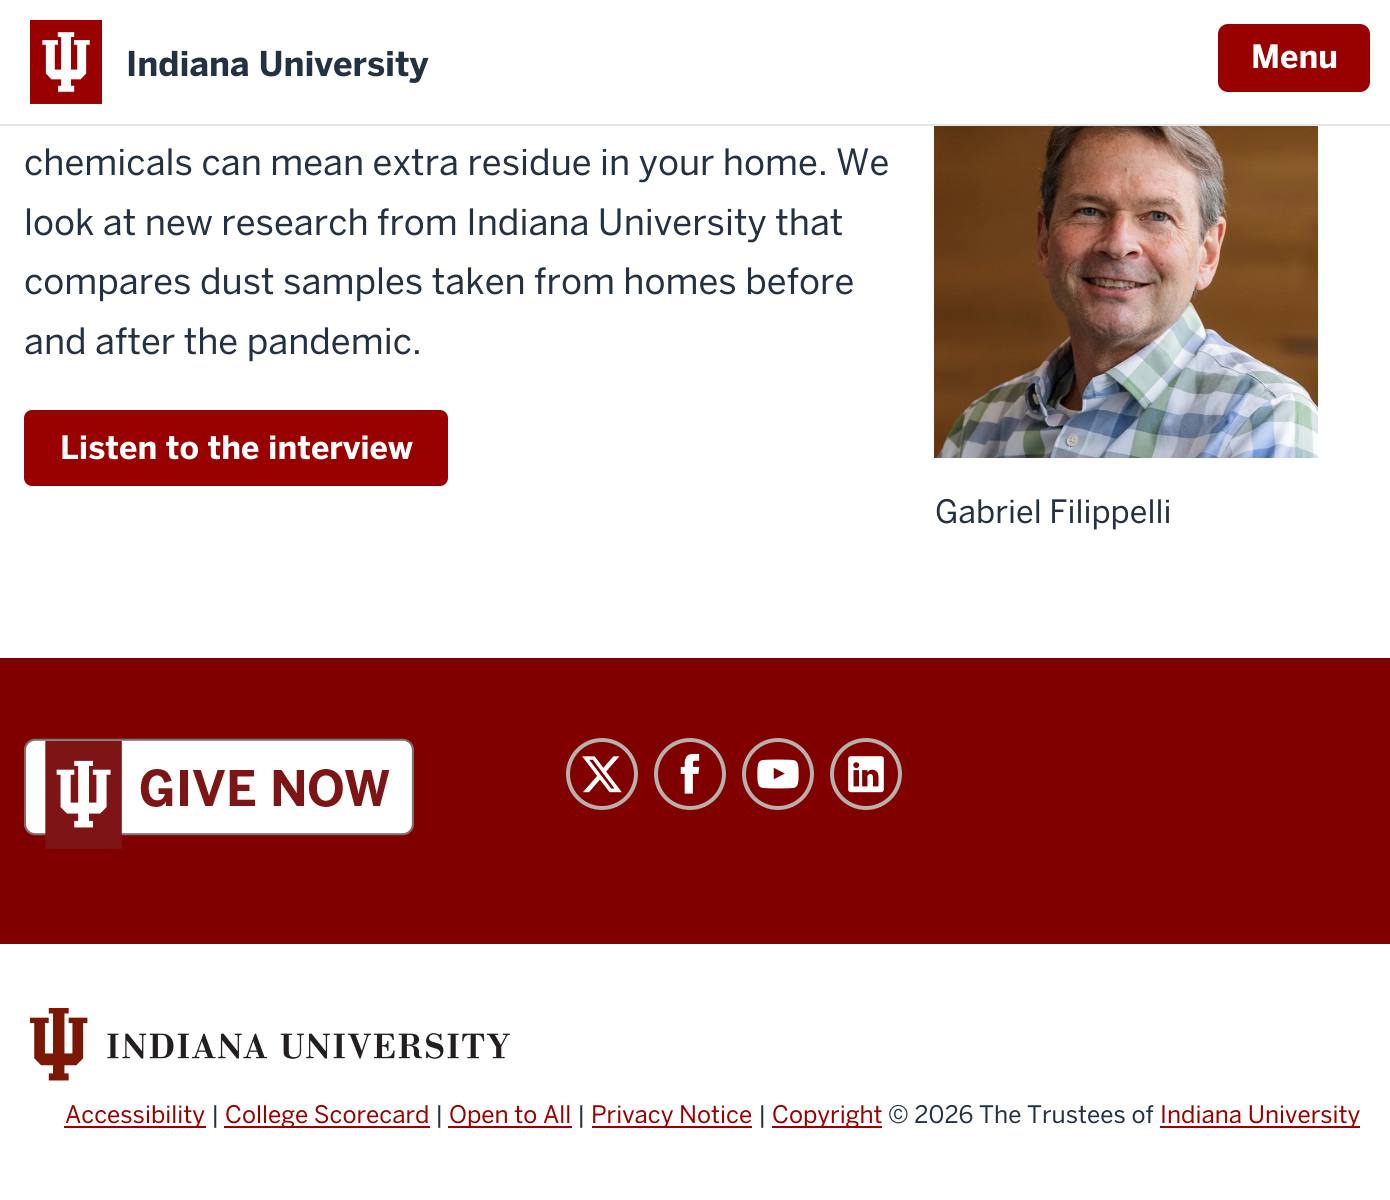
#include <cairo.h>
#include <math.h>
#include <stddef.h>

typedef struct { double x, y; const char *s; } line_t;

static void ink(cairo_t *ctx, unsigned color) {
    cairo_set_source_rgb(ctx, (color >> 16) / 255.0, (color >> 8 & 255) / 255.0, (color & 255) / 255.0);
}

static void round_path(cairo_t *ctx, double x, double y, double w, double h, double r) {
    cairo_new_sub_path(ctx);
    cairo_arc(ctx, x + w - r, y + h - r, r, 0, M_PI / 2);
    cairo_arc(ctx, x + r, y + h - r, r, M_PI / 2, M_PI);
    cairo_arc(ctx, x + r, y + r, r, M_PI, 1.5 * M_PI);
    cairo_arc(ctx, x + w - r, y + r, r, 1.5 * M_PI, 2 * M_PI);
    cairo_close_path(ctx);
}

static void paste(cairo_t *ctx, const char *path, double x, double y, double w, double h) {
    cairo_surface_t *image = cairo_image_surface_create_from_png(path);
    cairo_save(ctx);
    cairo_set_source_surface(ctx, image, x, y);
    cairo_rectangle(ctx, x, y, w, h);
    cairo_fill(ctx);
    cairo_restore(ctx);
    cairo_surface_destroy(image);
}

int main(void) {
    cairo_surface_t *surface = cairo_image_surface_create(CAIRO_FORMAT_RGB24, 1390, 1200);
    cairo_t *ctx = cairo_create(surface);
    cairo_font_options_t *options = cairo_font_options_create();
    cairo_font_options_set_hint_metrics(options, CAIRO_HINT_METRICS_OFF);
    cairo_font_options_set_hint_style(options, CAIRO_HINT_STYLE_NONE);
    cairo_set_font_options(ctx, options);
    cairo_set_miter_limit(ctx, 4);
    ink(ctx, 0xFFFFFF);
    cairo_paint(ctx);
    ink(ctx, 0xE2E7E9);
    cairo_rectangle(ctx, 0, 124, 1390, 2);
    cairo_fill(ctx);
    paste(ctx, "media/1.png", 30, 20, 72, 84);
    cairo_select_font_face(ctx, "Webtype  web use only", CAIRO_FONT_SLANT_NORMAL, CAIRO_FONT_WEIGHT_BOLD);
    cairo_set_font_size(ctx, 34);
    ink(ctx, 0x243142);
    cairo_move_to(ctx, 126, 76);
    cairo_show_text(ctx, "Indiana University");
    ink(ctx, 0x990000);
    round_path(ctx, 1218, 24, 152, 68, 10);
    cairo_fill(ctx);
    cairo_set_font_size(ctx, 32);
    ink(ctx, 0xFFFFFF);
    cairo_move_to(ctx, 1251, 68);
    cairo_show_text(ctx, "Menu");
    cairo_select_font_face(ctx, "Webtype  web use only", CAIRO_FONT_SLANT_NORMAL, CAIRO_FONT_WEIGHT_NORMAL);
    cairo_set_font_size(ctx, 36);
    ink(ctx, 0x243142);
    {
        static const line_t items[] = {
            {24, 175, "chemicals can mean extra residue in your home. We"},
            {24, 235, "look at new research from Indiana University that"},
            {24, 294, "compares dust samples taken from homes before"},
            {24, 354, "and after the pandemic."},
        };
        for (size_t i = 0; i < sizeof items / sizeof *items; i++) {
            cairo_move_to(ctx, items[i].x, items[i].y);
            cairo_show_text(ctx, items[i].s);
        }
    }
    ink(ctx, 0x990000);
    round_path(ctx, 24, 410, 424, 76, 8);
    cairo_fill(ctx);
    cairo_select_font_face(ctx, "Webtype  web use only", CAIRO_FONT_SLANT_NORMAL, CAIRO_FONT_WEIGHT_BOLD);
    cairo_set_font_size(ctx, 32);
    ink(ctx, 0xFFFFFF);
    cairo_move_to(ctx, 60, 459);
    cairo_show_text(ctx, "Listen to the interview");
    paste(ctx, "media/2.png", 934, 126, 384, 332);
    cairo_select_font_face(ctx, "Webtype  web use only", CAIRO_FONT_SLANT_NORMAL, CAIRO_FONT_WEIGHT_NORMAL);
    ink(ctx, 0x243142);
    cairo_move_to(ctx, 935, 523);
    cairo_show_text(ctx, "Gabriel Filippelli");
    ink(ctx, 0x800000);
    cairo_rectangle(ctx, 0, 658, 1390, 286);
    cairo_fill(ctx);
    paste(ctx, "media/3.png", 24, 738, 390, 111);
    cairo_arc(ctx, 602, 774, 34, 0, 2 * M_PI);
    ink(ctx, 0xB8B0AB);
    cairo_set_line_width(ctx, 4);
    cairo_stroke(ctx);
    paste(ctx, "media/4.png", 582, 756, 40, 37);
    cairo_arc(ctx, 690, 774, 34, 0, 2 * M_PI);
    cairo_stroke(ctx);
    paste(ctx, "media/5.png", 680, 753, 20, 41);
    cairo_arc(ctx, 778, 774, 34, 0, 2 * M_PI);
    cairo_stroke(ctx);
    paste(ctx, "media/6.png", 757, 759, 42, 30);
    cairo_arc(ctx, 866, 774, 34, 0, 2 * M_PI);
    cairo_stroke(ctx);
    paste(ctx, "media/7.png", 848, 756, 36, 37);
    paste(ctx, "media/8.png", 30, 1008, 480, 73);
    ink(ctx, 0x990000);
    cairo_rectangle(ctx, 64, 1126, 142, 2);
    cairo_fill(ctx);
    cairo_set_font_size(ctx, 24);
    cairo_move_to(ctx, 65, 1123);
    cairo_show_text(ctx, "Accessibility");
    ink(ctx, 0x243142);
    cairo_move_to(ctx, 211, 1123);
    cairo_show_text(ctx, "|");
    ink(ctx, 0x990000);
    cairo_rectangle(ctx, 224, 1126, 206, 2);
    cairo_fill(ctx);
    cairo_move_to(ctx, 225, 1123);
    cairo_show_text(ctx, "College Scorecard");
    ink(ctx, 0x243142);
    cairo_move_to(ctx, 435, 1123);
    cairo_show_text(ctx, "|");
    ink(ctx, 0x990000);
    cairo_rectangle(ctx, 448, 1126, 124, 2);
    cairo_fill(ctx);
    cairo_move_to(ctx, 449, 1123);
    cairo_show_text(ctx, "Open to All");
    ink(ctx, 0x243142);
    cairo_move_to(ctx, 577, 1123);
    cairo_show_text(ctx, "|");
    ink(ctx, 0x990000);
    cairo_rectangle(ctx, 592, 1126, 160, 2);
    cairo_fill(ctx);
    cairo_move_to(ctx, 591, 1123);
    cairo_show_text(ctx, "Privacy Notice");
    ink(ctx, 0x243142);
    cairo_move_to(ctx, 758, 1123);
    cairo_show_text(ctx, "|");
    ink(ctx, 0x990000);
    cairo_rectangle(ctx, 772, 1126, 110, 2);
    cairo_fill(ctx);
    cairo_move_to(ctx, 772, 1123);
    cairo_show_text(ctx, "Copyright");
    ink(ctx, 0x243142);
    cairo_move_to(ctx, 888, 1123);
    cairo_show_text(ctx, "© 2026 The Trustees of");
    ink(ctx, 0x990000);
    cairo_rectangle(ctx, 1160, 1126, 200, 2);
    cairo_fill(ctx);
    cairo_move_to(ctx, 1160, 1123);
    cairo_show_text(ctx, "Indiana University");
    cairo_surface_write_to_png(surface, "image.png");
    cairo_font_options_destroy(options);
    cairo_destroy(ctx);
    cairo_surface_destroy(surface);
    return 0;
}
